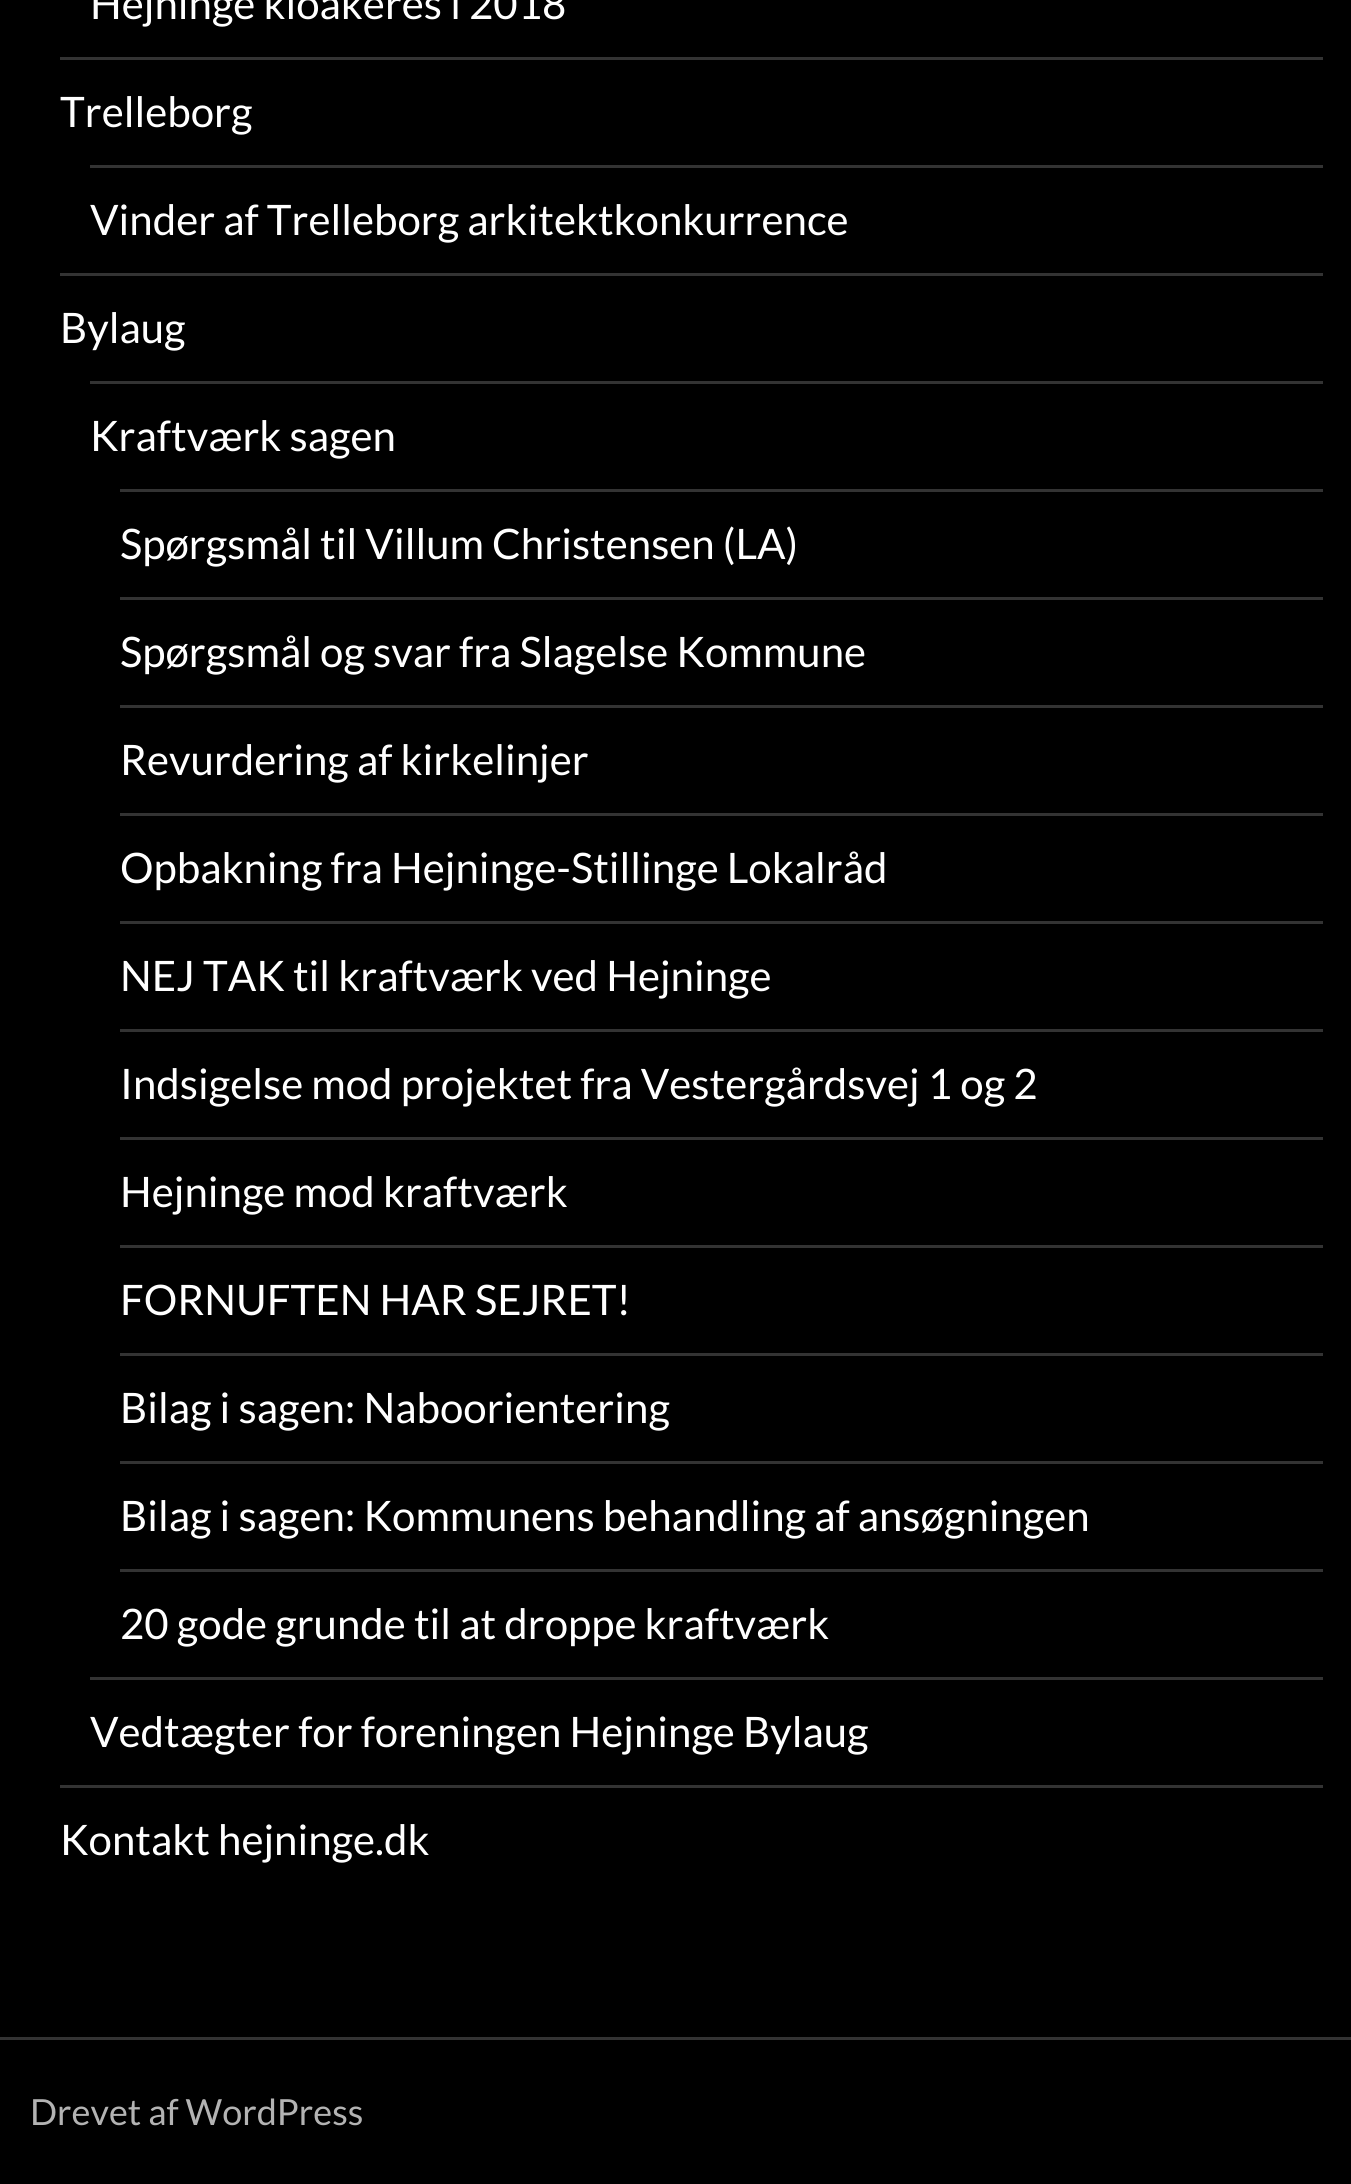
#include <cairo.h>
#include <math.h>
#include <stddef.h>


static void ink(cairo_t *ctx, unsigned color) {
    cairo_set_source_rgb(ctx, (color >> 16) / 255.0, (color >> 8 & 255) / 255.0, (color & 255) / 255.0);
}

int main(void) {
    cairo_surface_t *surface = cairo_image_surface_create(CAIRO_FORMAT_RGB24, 1351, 2184);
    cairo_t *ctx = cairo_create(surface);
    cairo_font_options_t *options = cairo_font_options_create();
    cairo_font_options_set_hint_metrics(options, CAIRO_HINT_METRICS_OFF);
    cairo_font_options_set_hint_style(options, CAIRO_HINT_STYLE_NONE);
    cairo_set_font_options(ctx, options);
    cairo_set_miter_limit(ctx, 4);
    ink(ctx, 0x000000);
    cairo_paint(ctx);
    ink(ctx, 0x333333);
    cairo_rectangle(ctx, 0, 2037, 1351, 3);
    cairo_fill(ctx);
    cairo_select_font_face(ctx, "Lato", CAIRO_FONT_SLANT_NORMAL, CAIRO_FONT_WEIGHT_NORMAL);
    cairo_set_font_size(ctx, 42);
    ink(ctx, 0xFFFFFF);
    cairo_move_to(ctx, 90, 19);
    cairo_show_text(ctx, "Hejninge kloakeres i 2018");
    ink(ctx, 0x333333);
    cairo_rectangle(ctx, 60, 57, 1263, 3);
    cairo_fill(ctx);
    ink(ctx, 0xFFFFFF);
    cairo_move_to(ctx, 60, 127);
    cairo_show_text(ctx, "Trelleborg");
    ink(ctx, 0x333333);
    cairo_rectangle(ctx, 90, 165, 1233, 3);
    cairo_fill(ctx);
    ink(ctx, 0xFFFFFF);
    cairo_move_to(ctx, 90, 235);
    cairo_show_text(ctx, "Vinder af Trelleborg arkitektkonkurrence");
    ink(ctx, 0x333333);
    cairo_rectangle(ctx, 60, 273, 1263, 3);
    cairo_fill(ctx);
    ink(ctx, 0xFFFFFF);
    cairo_move_to(ctx, 60, 343);
    cairo_show_text(ctx, "Bylaug");
    ink(ctx, 0x333333);
    cairo_rectangle(ctx, 90, 381, 1233, 3);
    cairo_fill(ctx);
    ink(ctx, 0xFFFFFF);
    cairo_move_to(ctx, 90, 451);
    cairo_show_text(ctx, "Kraftværk sagen");
    ink(ctx, 0x333333);
    cairo_rectangle(ctx, 120, 489, 1203, 3);
    cairo_fill(ctx);
    ink(ctx, 0xFFFFFF);
    cairo_move_to(ctx, 120, 559);
    cairo_show_text(ctx, "Spørgsmål til Villum Christensen (LA)");
    ink(ctx, 0x333333);
    cairo_rectangle(ctx, 120, 597, 1203, 3);
    cairo_fill(ctx);
    ink(ctx, 0xFFFFFF);
    cairo_move_to(ctx, 120, 667);
    cairo_show_text(ctx, "Spørgsmål og svar fra Slagelse Kommune");
    ink(ctx, 0x333333);
    cairo_rectangle(ctx, 120, 705, 1203, 3);
    cairo_fill(ctx);
    ink(ctx, 0xFFFFFF);
    cairo_move_to(ctx, 120, 775);
    cairo_show_text(ctx, "Revurdering af kirkelinjer");
    ink(ctx, 0x333333);
    cairo_rectangle(ctx, 120, 813, 1203, 3);
    cairo_fill(ctx);
    ink(ctx, 0xFFFFFF);
    cairo_move_to(ctx, 120, 883);
    cairo_show_text(ctx, "Opbakning fra Hejninge-Stillinge Lokalråd");
    ink(ctx, 0x333333);
    cairo_rectangle(ctx, 120, 921, 1203, 3);
    cairo_fill(ctx);
    ink(ctx, 0xFFFFFF);
    cairo_move_to(ctx, 120, 991);
    cairo_show_text(ctx, "NEJ TAK til kraftværk ved Hejninge");
    ink(ctx, 0x333333);
    cairo_rectangle(ctx, 120, 1029, 1203, 3);
    cairo_fill(ctx);
    ink(ctx, 0xFFFFFF);
    cairo_move_to(ctx, 120, 1099);
    cairo_show_text(ctx, "Indsigelse mod projektet fra Vestergårdsvej 1 og 2");
    ink(ctx, 0x333333);
    cairo_rectangle(ctx, 120, 1137, 1203, 3);
    cairo_fill(ctx);
    ink(ctx, 0xFFFFFF);
    cairo_move_to(ctx, 120, 1207);
    cairo_show_text(ctx, "Hejninge mod kraftværk");
    ink(ctx, 0x333333);
    cairo_rectangle(ctx, 120, 1245, 1203, 3);
    cairo_fill(ctx);
    ink(ctx, 0xFFFFFF);
    cairo_move_to(ctx, 120, 1315);
    cairo_show_text(ctx, "FORNUFTEN HAR SEJRET!");
    ink(ctx, 0x333333);
    cairo_rectangle(ctx, 120, 1353, 1203, 3);
    cairo_fill(ctx);
    ink(ctx, 0xFFFFFF);
    cairo_move_to(ctx, 120, 1423);
    cairo_show_text(ctx, "Bilag i sagen: Naboorientering");
    ink(ctx, 0x333333);
    cairo_rectangle(ctx, 120, 1461, 1203, 3);
    cairo_fill(ctx);
    ink(ctx, 0xFFFFFF);
    cairo_move_to(ctx, 120, 1531);
    cairo_show_text(ctx, "Bilag i sagen: Kommunens behandling af ansøgningen");
    ink(ctx, 0x333333);
    cairo_rectangle(ctx, 120, 1569, 1203, 3);
    cairo_fill(ctx);
    ink(ctx, 0xFFFFFF);
    cairo_move_to(ctx, 120, 1639);
    cairo_show_text(ctx, "20 gode grunde til at droppe kraftværk");
    ink(ctx, 0x333333);
    cairo_rectangle(ctx, 90, 1677, 1233, 3);
    cairo_fill(ctx);
    ink(ctx, 0xFFFFFF);
    cairo_move_to(ctx, 90, 1747);
    cairo_show_text(ctx, "Vedtægter for foreningen Hejninge Bylaug");
    ink(ctx, 0x333333);
    cairo_rectangle(ctx, 60, 1785, 1263, 3);
    cairo_fill(ctx);
    ink(ctx, 0xFFFFFF);
    cairo_move_to(ctx, 60, 1855);
    cairo_show_text(ctx, "Kontakt hejninge.dk");
    cairo_set_font_size(ctx, 36);
    ink(ctx, 0xB3B3B3);
    cairo_move_to(ctx, 30, 2125);
    cairo_show_text(ctx, "Drevet af WordPress");
    cairo_surface_write_to_png(surface, "image.png");
    cairo_font_options_destroy(options);
    cairo_destroy(ctx);
    cairo_surface_destroy(surface);
    return 0;
}
